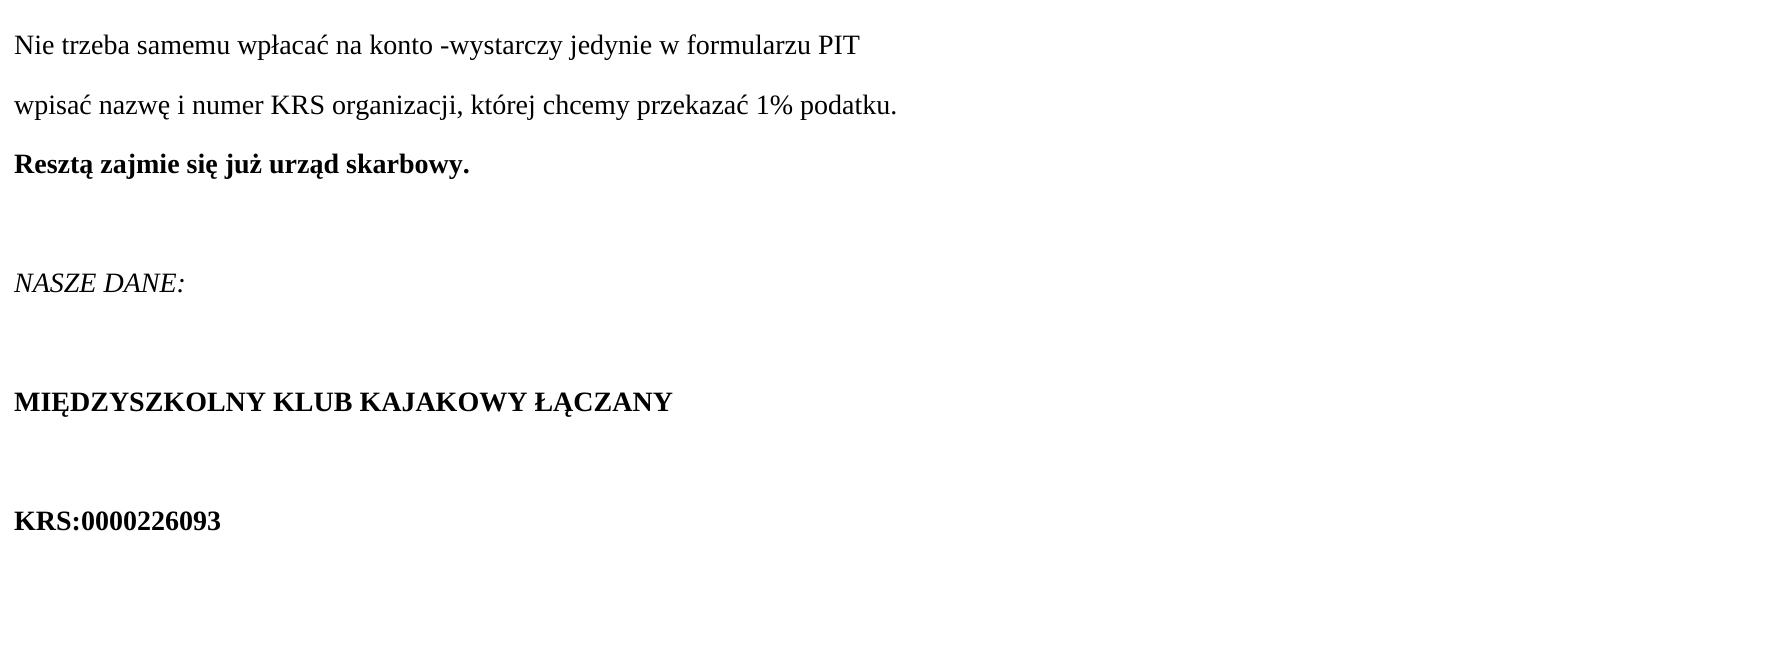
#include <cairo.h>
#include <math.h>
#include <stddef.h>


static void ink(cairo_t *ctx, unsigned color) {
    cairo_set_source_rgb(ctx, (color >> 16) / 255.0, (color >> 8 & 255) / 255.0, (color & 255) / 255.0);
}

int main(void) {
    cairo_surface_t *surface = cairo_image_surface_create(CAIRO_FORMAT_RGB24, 1769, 647);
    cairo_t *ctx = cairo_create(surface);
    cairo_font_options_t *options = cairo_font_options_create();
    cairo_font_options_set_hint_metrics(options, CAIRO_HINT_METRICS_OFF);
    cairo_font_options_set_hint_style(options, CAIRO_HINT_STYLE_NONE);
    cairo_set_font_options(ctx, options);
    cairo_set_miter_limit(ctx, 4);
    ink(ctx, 0xFFFFFF);
    cairo_paint(ctx);
    cairo_select_font_face(ctx, "Liberation Serif", CAIRO_FONT_SLANT_NORMAL, CAIRO_FONT_WEIGHT_NORMAL);
    cairo_set_font_size(ctx, 28);
    ink(ctx, 0x000000);
    cairo_move_to(ctx, 14, 54);
    cairo_show_text(ctx, "Nie trzeba samemu wpłacać na konto -wystarczy jedynie w formularzu PIT");
    cairo_move_to(ctx, 14, 114);
    cairo_show_text(ctx, "wpisać nazwę i numer KRS organizacji, której chcemy przekazać 1% podatku.");
    cairo_select_font_face(ctx, "Liberation Serif", CAIRO_FONT_SLANT_NORMAL, CAIRO_FONT_WEIGHT_BOLD);
    cairo_move_to(ctx, 14, 173);
    cairo_show_text(ctx, "Resztą zajmie się już urząd skarbowy.");
    cairo_select_font_face(ctx, "Liberation Serif", CAIRO_FONT_SLANT_ITALIC, CAIRO_FONT_WEIGHT_NORMAL);
    cairo_move_to(ctx, 14, 292);
    cairo_show_text(ctx, "NASZE DANE:");
    cairo_select_font_face(ctx, "Liberation Serif", CAIRO_FONT_SLANT_NORMAL, CAIRO_FONT_WEIGHT_BOLD);
    cairo_move_to(ctx, 14, 411);
    cairo_show_text(ctx, "MIĘDZYSZKOLNY KLUB KAJAKOWY ŁĄCZANY");
    cairo_move_to(ctx, 14, 530);
    cairo_show_text(ctx, "KRS:0000226093");
    cairo_surface_write_to_png(surface, "image.png");
    cairo_font_options_destroy(options);
    cairo_destroy(ctx);
    cairo_surface_destroy(surface);
    return 0;
}
